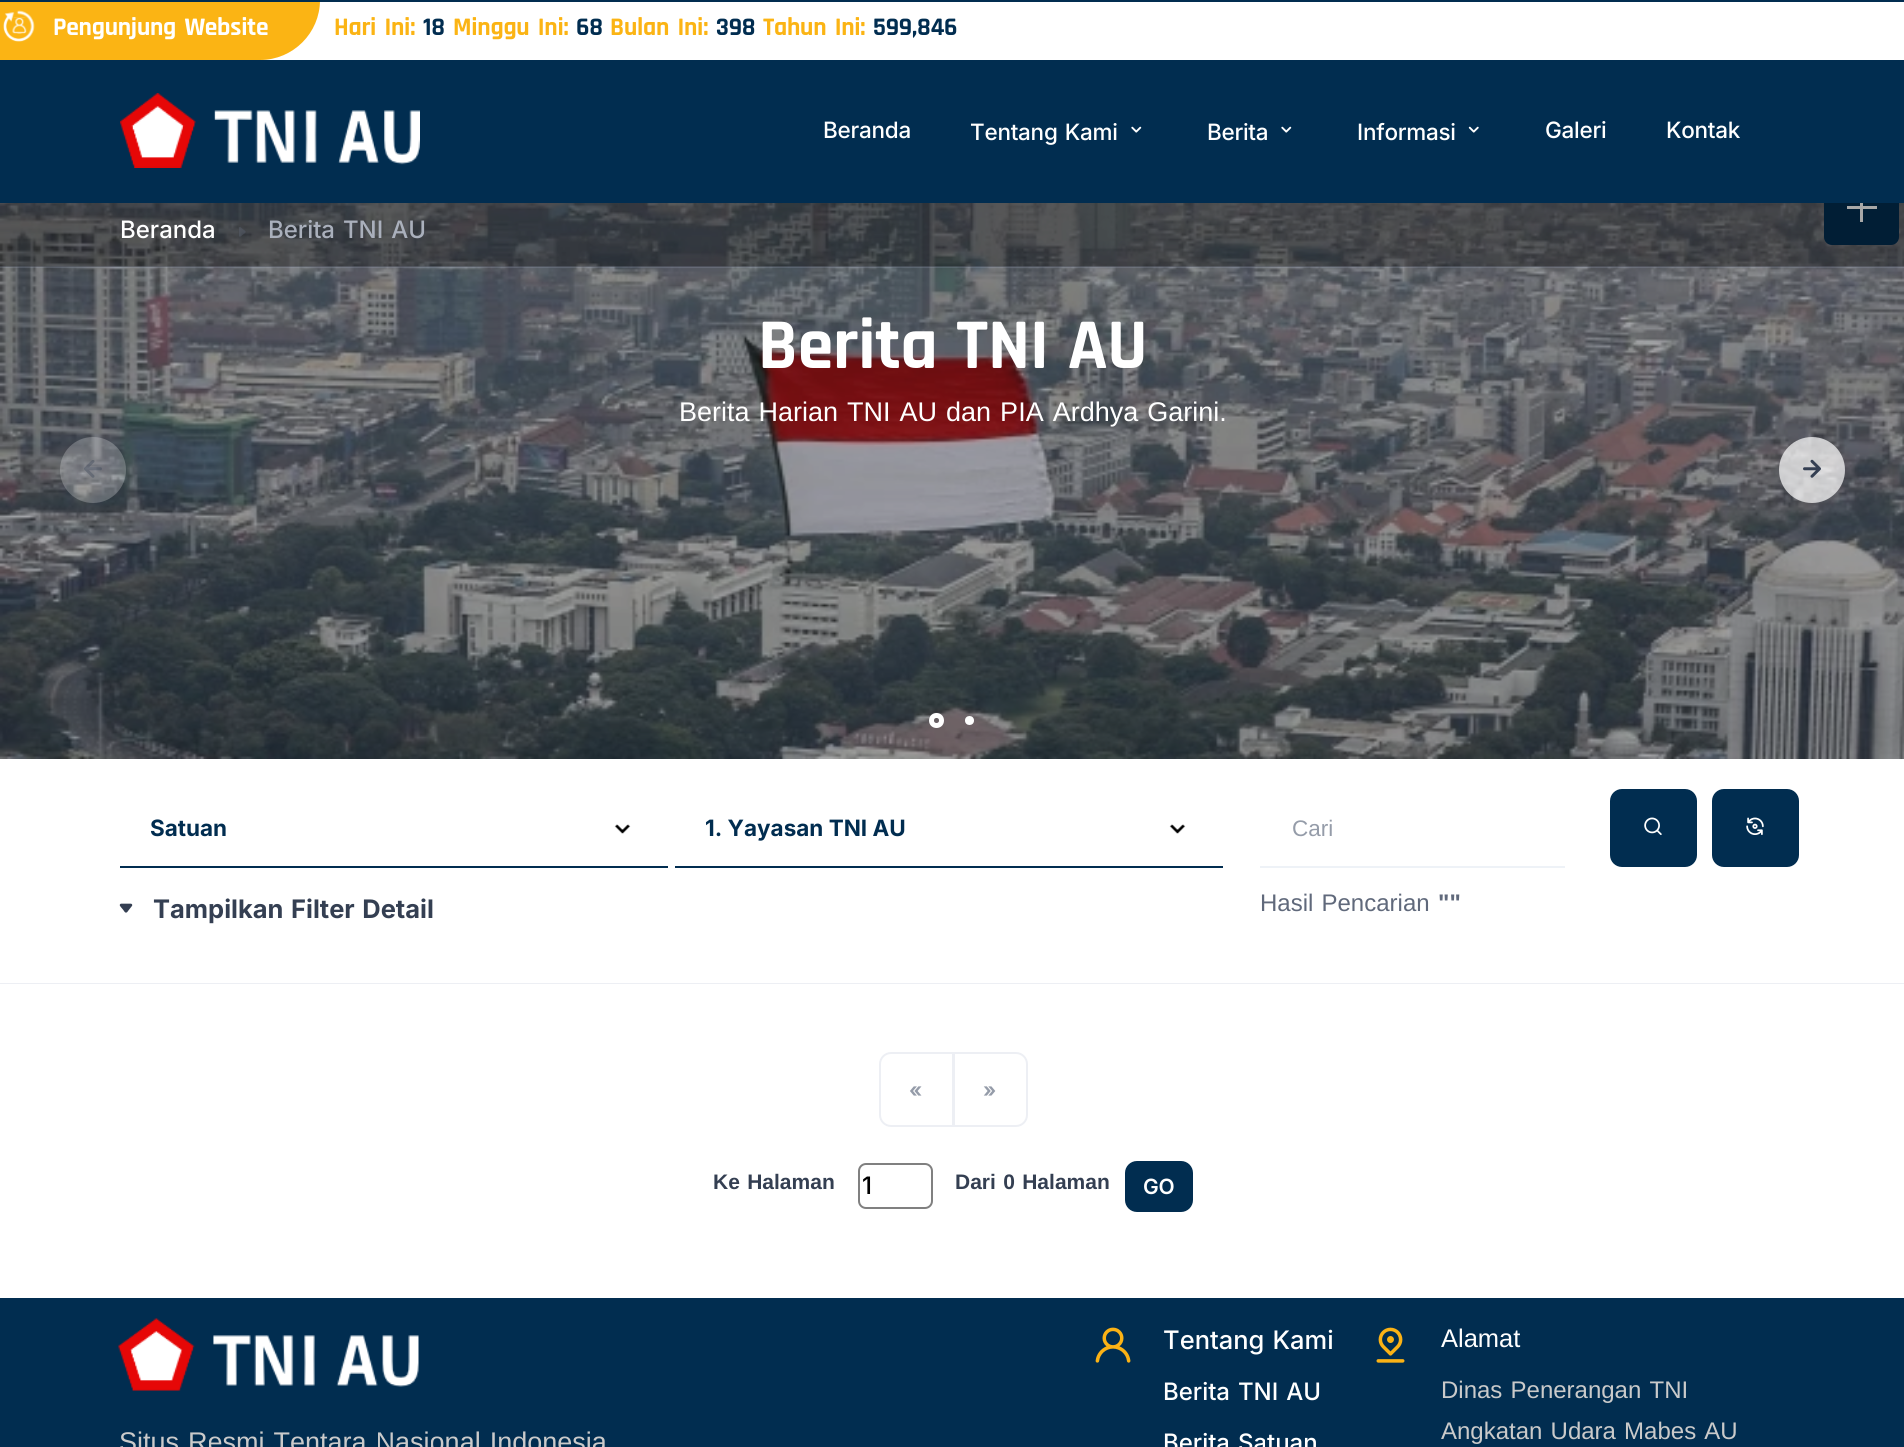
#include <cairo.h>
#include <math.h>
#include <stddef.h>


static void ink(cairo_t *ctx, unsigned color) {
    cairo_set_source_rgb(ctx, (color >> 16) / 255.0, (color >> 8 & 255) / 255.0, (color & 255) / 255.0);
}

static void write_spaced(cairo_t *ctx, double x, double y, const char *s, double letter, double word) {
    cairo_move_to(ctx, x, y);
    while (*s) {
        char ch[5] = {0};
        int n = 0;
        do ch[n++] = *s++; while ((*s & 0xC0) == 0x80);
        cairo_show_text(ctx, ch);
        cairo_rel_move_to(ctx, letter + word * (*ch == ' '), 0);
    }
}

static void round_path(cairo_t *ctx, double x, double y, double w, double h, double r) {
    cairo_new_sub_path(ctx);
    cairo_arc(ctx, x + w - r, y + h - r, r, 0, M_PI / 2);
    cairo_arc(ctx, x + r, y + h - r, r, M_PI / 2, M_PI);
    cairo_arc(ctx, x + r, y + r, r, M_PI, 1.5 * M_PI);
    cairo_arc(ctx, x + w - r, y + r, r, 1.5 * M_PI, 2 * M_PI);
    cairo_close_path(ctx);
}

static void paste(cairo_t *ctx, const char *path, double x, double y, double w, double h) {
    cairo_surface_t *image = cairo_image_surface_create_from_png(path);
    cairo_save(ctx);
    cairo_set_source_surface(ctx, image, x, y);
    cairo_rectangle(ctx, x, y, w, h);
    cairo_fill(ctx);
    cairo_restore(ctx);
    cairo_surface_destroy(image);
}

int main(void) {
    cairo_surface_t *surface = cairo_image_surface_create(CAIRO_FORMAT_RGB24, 1904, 1447);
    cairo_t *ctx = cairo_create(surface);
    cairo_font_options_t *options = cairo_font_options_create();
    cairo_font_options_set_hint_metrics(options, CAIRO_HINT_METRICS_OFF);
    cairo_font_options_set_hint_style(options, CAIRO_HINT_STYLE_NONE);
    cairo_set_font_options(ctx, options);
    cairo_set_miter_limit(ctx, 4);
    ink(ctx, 0xFFFFFF);
    cairo_paint(ctx);
    ink(ctx, 0xFBB414);
    cairo_new_path(ctx);
    cairo_move_to(ctx, 0, 0);
    cairo_line_to(ctx, 320, 0);
    cairo_curve_to(ctx, 320, 33, 293, 60, 260, 60);
    cairo_line_to(ctx, 0, 60);
    cairo_close_path(ctx);
    cairo_fill(ctx);
    ink(ctx, 0x012D50);
    cairo_rectangle(ctx, 0, 0, 1904, 2);
    cairo_fill(ctx);
    paste(ctx, "media/1.png", 3, 10, 32, 32);
    cairo_select_font_face(ctx, "Rajdhani", CAIRO_FONT_SLANT_NORMAL, CAIRO_FONT_WEIGHT_BOLD);
    cairo_set_font_size(ctx, 25.5);
    ink(ctx, 0xFFFFFF);
    write_spaced(ctx, 53, 35, "Pengunjung Website", -0.25, 3);
    ink(ctx, 0xFBB414);
    write_spaced(ctx, 334, 35, "Hari Ini:", -0.25, 3);
    ink(ctx, 0x012D50);
    write_spaced(ctx, 423, 35, "18", -0.25, 0);
    ink(ctx, 0xFBB414);
    write_spaced(ctx, 453, 35, "Minggu Ini:", -0.25, 3);
    ink(ctx, 0x012D50);
    write_spaced(ctx, 576, 35, "68", -0.25, 0);
    ink(ctx, 0xFBB414);
    write_spaced(ctx, 610, 35, "Bulan Ini:", -0.25, 3);
    ink(ctx, 0x012D50);
    write_spaced(ctx, 716, 35, "398", -0.25, 0);
    ink(ctx, 0xFBB414);
    write_spaced(ctx, 763, 35, "Tahun Ini:", -0.25, 3);
    ink(ctx, 0x012D50);
    write_spaced(ctx, 873, 35, "599,846", -0.25, 0);
    paste(ctx, "media/5.png", 0, 203, 1904, 556);
    round_path(ctx, 1824, 170, 75, 75, 8);
    cairo_fill(ctx);
    cairo_rectangle(ctx, 0, 60, 1904, 143);
    cairo_fill(ctx);
    paste(ctx, "media/2.png", 120, 93, 300, 75);
    cairo_select_font_face(ctx, "Inter Medium", CAIRO_FONT_SLANT_NORMAL, CAIRO_FONT_WEIGHT_NORMAL);
    cairo_set_font_size(ctx, 22.5);
    ink(ctx, 0xFFFFFF);
    write_spaced(ctx, 823, 138, "Beranda", -0.25, 0);
    write_spaced(ctx, 970, 140, "Tentang Kami", -0.25, 1.5);
    paste(ctx, "media/3.png", 1131, 126, 11, 7);
    write_spaced(ctx, 1207, 140, "Berita", -0.25, 0);
    paste(ctx, "media/3.png", 1281, 126, 11, 7);
    write_spaced(ctx, 1357, 140, "Informasi", -0.25, 0);
    paste(ctx, "media/4.png", 1468, 126, 11, 7);
    write_spaced(ctx, 1545, 138, "Galeri", -0.25, 0);
    write_spaced(ctx, 1666, 138, "Kontak", -0.25, 0);
    cairo_rectangle(ctx, 1860, 203, 3, 19);
    cairo_fill(ctx);
    cairo_rectangle(ctx, 1847, 206, 30, 3);
    cairo_fill(ctx);
    cairo_set_source_rgba(ctx, 1, 1, 1, 0.24);
    cairo_arc(ctx, 93, 470, 33, 0, 2 * M_PI);
    cairo_fill(ctx);
    paste(ctx, "media/6.png", 84, 460, 18, 18);
    cairo_set_source_rgba(ctx, 1, 1, 1, 0.7);
    cairo_arc(ctx, 1812, 470, 33, 0, 2 * M_PI);
    cairo_fill(ctx);
    paste(ctx, "media/7.png", 1803, 459, 18, 19);
    cairo_arc(ctx, 936.5, 720.5, 5, 0, 2 * M_PI);
    ink(ctx, 0xFFFFFF);
    cairo_set_line_width(ctx, 5);
    cairo_stroke(ctx);
    cairo_arc(ctx, 969.5, 720.5, 4.5, 0, 2 * M_PI);
    cairo_fill(ctx);
    cairo_set_source_rgba(ctx, 0, 0, 0, 0.34);
    cairo_rectangle(ctx, 0, 203, 1904, 64);
    cairo_fill(ctx);
    cairo_set_source_rgba(ctx, 0.643, 0.682, 0.776, 0.2);
    cairo_rectangle(ctx, 0, 266, 1904, 2);
    cairo_fill(ctx);
    cairo_set_font_size(ctx, 24);
    ink(ctx, 0xFFFFFF);
    cairo_move_to(ctx, 120, 238);
    cairo_show_text(ctx, "Beranda");
    paste(ctx, "media/8.png", 239, 227, 7, 10);
    ink(ctx, 0xAAB0BC);
    write_spaced(ctx, 268, 238, "Berita TNI AU", 0, 1.5);
    cairo_select_font_face(ctx, "Rajdhani", CAIRO_FONT_SLANT_NORMAL, CAIRO_FONT_WEIGHT_BOLD);
    cairo_set_font_size(ctx, 72);
    ink(ctx, 0xFFFFFF);
    write_spaced(ctx, 758, 368, "Berita TNI AU", -0.25, 3);
    cairo_select_font_face(ctx, "Liberation Sans", CAIRO_FONT_SLANT_NORMAL, CAIRO_FONT_WEIGHT_NORMAL);
    cairo_set_font_size(ctx, 27);
    write_spaced(ctx, 679, 421, "Berita Harian TNI AU dan PIA Ardhya Garini.", 0, 1.5);
    ink(ctx, 0xEDEFF4);
    cairo_rectangle(ctx, 0, 983, 1904, 1);
    cairo_fill(ctx);
    paste(ctx, "media/9.png", 614, 824, 17, 10);
    ink(ctx, 0x012D50);
    cairo_rectangle(ctx, 120, 866, 548, 2);
    cairo_fill(ctx);
    cairo_select_font_face(ctx, "Inter", CAIRO_FONT_SLANT_NORMAL, CAIRO_FONT_WEIGHT_BOLD);
    cairo_set_font_size(ctx, 22.5);
    cairo_move_to(ctx, 150, 836);
    cairo_show_text(ctx, "Satuan");
    paste(ctx, "media/10.png", 1169, 824, 17, 10);
    cairo_rectangle(ctx, 675, 866, 548, 2);
    cairo_fill(ctx);
    cairo_move_to(ctx, 705, 836);
    cairo_show_text(ctx, "1. Yayasan TNI AU");
    cairo_select_font_face(ctx, "Liberation Sans", CAIRO_FONT_SLANT_NORMAL, CAIRO_FONT_WEIGHT_NORMAL);
    ink(ctx, 0x959CA9);
    cairo_move_to(ctx, 1292, 836);
    cairo_show_text(ctx, "Cari");
    cairo_set_source_rgba(ctx, 0.031, 0.235, 0.51, 0.07);
    cairo_rectangle(ctx, 1260, 866, 305, 2);
    cairo_fill(ctx);
    ink(ctx, 0x012D50);
    round_path(ctx, 1611.5, 790.5, 84, 75, 10.5);
    cairo_fill_preserve(ctx);
    cairo_set_line_width(ctx, 3);
    cairo_stroke(ctx);
    paste(ctx, "media/11.png", 1644, 817, 18, 18);
    round_path(ctx, 1713.5, 790.5, 84, 75, 10.5);
    cairo_fill_preserve(ctx);
    cairo_stroke(ctx);
    paste(ctx, "media/12.png", 1746, 817, 18, 18);
    paste(ctx, "media/13.png", 119, 903, 14, 10);
    cairo_select_font_face(ctx, "Inter", CAIRO_FONT_SLANT_NORMAL, CAIRO_FONT_WEIGHT_BOLD);
    cairo_set_font_size(ctx, 25.5);
    ink(ctx, 0x343F52);
    write_spaced(ctx, 153, 918, "Tampilkan Filter Detail", 0, 1.5);
    cairo_select_font_face(ctx, "Liberation Sans", CAIRO_FONT_SLANT_NORMAL, CAIRO_FONT_WEIGHT_NORMAL);
    cairo_set_font_size(ctx, 24);
    ink(ctx, 0x60697B);
    write_spaced(ctx, 1260, 911, "Hasil Pencarian", 0, 1.5);
    cairo_select_font_face(ctx, "Liberation Sans", CAIRO_FONT_SLANT_NORMAL, CAIRO_FONT_WEIGHT_BOLD);
    cairo_move_to(ctx, 1438, 911);
    cairo_show_text(ctx, "\"\"");
    cairo_new_path(ctx);
    cairo_move_to(ctx, 891, 1053);
    cairo_line_to(ctx, 953, 1053);
    cairo_line_to(ctx, 953, 1126);
    cairo_line_to(ctx, 891, 1126);
    cairo_curve_to(ctx, 885, 1126, 880, 1121, 880, 1115);
    cairo_line_to(ctx, 880, 1064);
    cairo_curve_to(ctx, 880, 1058, 885, 1053, 891, 1053);
    cairo_close_path(ctx);
    ink(ctx, 0xEDEFF4);
    cairo_set_line_width(ctx, 2);
    cairo_stroke(ctx);
    cairo_select_font_face(ctx, "Inter", CAIRO_FONT_SLANT_NORMAL, CAIRO_FONT_WEIGHT_BOLD);
    cairo_set_font_size(ctx, 20);
    ink(ctx, 0x959CA9);
    cairo_move_to(ctx, 909, 1097);
    cairo_show_text(ctx, "«");
    ink(ctx, 0xFFFFFF);
    cairo_new_path(ctx);
    cairo_move_to(ctx, 954, 1053);
    cairo_line_to(ctx, 1016, 1053);
    cairo_curve_to(ctx, 1022, 1053, 1027, 1058, 1027, 1064);
    cairo_line_to(ctx, 1027, 1115);
    cairo_curve_to(ctx, 1027, 1121, 1022, 1126, 1016, 1126);
    cairo_line_to(ctx, 954, 1126);
    cairo_close_path(ctx);
    cairo_fill_preserve(ctx);
    ink(ctx, 0xEDEFF4);
    cairo_stroke(ctx);
    ink(ctx, 0x959CA9);
    cairo_move_to(ctx, 983, 1097);
    cairo_show_text(ctx, "»");
    cairo_select_font_face(ctx, "Liberation Sans", CAIRO_FONT_SLANT_NORMAL, CAIRO_FONT_WEIGHT_BOLD);
    cairo_set_font_size(ctx, 21);
    ink(ctx, 0x343F52);
    write_spaced(ctx, 713, 1189, "Ke Halaman", 0, 1.5);
    round_path(ctx, 859, 1164, 73, 44, 7);
    ink(ctx, 0x808080);
    cairo_stroke(ctx);
    cairo_select_font_face(ctx, "Inter Medium", CAIRO_FONT_SLANT_NORMAL, CAIRO_FONT_WEIGHT_NORMAL);
    cairo_set_font_size(ctx, 24);
    ink(ctx, 0x000000);
    cairo_move_to(ctx, 862, 1194);
    cairo_show_text(ctx, "1");
    cairo_select_font_face(ctx, "Liberation Sans", CAIRO_FONT_SLANT_NORMAL, CAIRO_FONT_WEIGHT_BOLD);
    cairo_set_font_size(ctx, 21);
    ink(ctx, 0x343F52);
    write_spaced(ctx, 955, 1189, "Dari 0 Halaman", 0, 1.5);
    ink(ctx, 0x012D50);
    round_path(ctx, 1126.5, 1162.5, 65, 48, 10.5);
    cairo_fill_preserve(ctx);
    cairo_set_line_width(ctx, 3);
    cairo_stroke(ctx);
    cairo_select_font_face(ctx, "Inter SemiBold", CAIRO_FONT_SLANT_NORMAL, CAIRO_FONT_WEIGHT_NORMAL);
    ink(ctx, 0xFFFFFF);
    write_spaced(ctx, 1143, 1194, "GO", -0.25, 0);
    ink(ctx, 0x012D50);
    cairo_rectangle(ctx, 0, 1298, 1904, 149);
    cairo_fill(ctx);
    paste(ctx, "media/14.png", 118, 1318, 301, 73);
    cairo_select_font_face(ctx, "Liberation Sans", CAIRO_FONT_SLANT_NORMAL, CAIRO_FONT_WEIGHT_NORMAL);
    cairo_set_font_size(ctx, 27);
    ink(ctx, 0xCACACA);
    write_spaced(ctx, 119, 1451, "Situs Resmi Tentara Nasional Indonesia", 0, 1.5);
    paste(ctx, "media/15.png", 1095, 1327, 36, 36);
    cairo_select_font_face(ctx, "Inter Medium", CAIRO_FONT_SLANT_NORMAL, CAIRO_FONT_WEIGHT_NORMAL);
    cairo_set_font_size(ctx, 25.5);
    ink(ctx, 0xFFFFFF);
    write_spaced(ctx, 1163, 1349, "Tentang Kami", 0, 1.5);
    cairo_set_font_size(ctx, 24);
    write_spaced(ctx, 1163, 1400, "Berita TNI AU", 0, 1.5);
    write_spaced(ctx, 1163, 1451, "Berita Satuan", 0, 1.5);
    paste(ctx, "media/16.png", 1376, 1327, 29, 36);
    cairo_select_font_face(ctx, "Liberation Sans", CAIRO_FONT_SLANT_NORMAL, CAIRO_FONT_WEIGHT_NORMAL);
    cairo_set_font_size(ctx, 25.5);
    cairo_move_to(ctx, 1441, 1347);
    cairo_show_text(ctx, "Alamat");
    cairo_set_font_size(ctx, 24);
    ink(ctx, 0xCACACA);
    write_spaced(ctx, 1441, 1398, "Dinas Penerangan TNI", 0, 1.5);
    write_spaced(ctx, 1441, 1439, "Angkatan Udara Mabes AU", 0, 1.5);
    cairo_surface_write_to_png(surface, "image.png");
    cairo_font_options_destroy(options);
    cairo_destroy(ctx);
    cairo_surface_destroy(surface);
    return 0;
}
